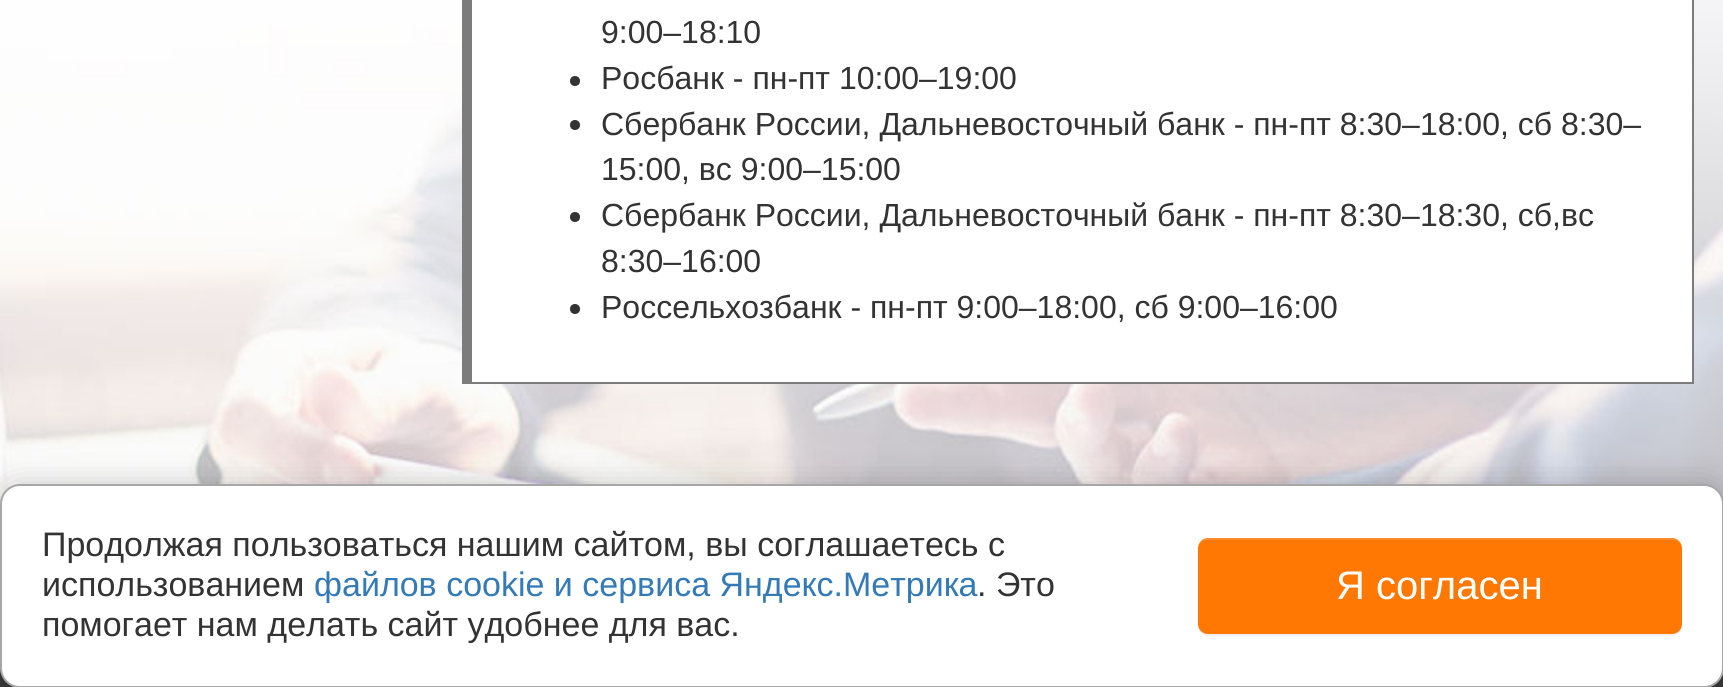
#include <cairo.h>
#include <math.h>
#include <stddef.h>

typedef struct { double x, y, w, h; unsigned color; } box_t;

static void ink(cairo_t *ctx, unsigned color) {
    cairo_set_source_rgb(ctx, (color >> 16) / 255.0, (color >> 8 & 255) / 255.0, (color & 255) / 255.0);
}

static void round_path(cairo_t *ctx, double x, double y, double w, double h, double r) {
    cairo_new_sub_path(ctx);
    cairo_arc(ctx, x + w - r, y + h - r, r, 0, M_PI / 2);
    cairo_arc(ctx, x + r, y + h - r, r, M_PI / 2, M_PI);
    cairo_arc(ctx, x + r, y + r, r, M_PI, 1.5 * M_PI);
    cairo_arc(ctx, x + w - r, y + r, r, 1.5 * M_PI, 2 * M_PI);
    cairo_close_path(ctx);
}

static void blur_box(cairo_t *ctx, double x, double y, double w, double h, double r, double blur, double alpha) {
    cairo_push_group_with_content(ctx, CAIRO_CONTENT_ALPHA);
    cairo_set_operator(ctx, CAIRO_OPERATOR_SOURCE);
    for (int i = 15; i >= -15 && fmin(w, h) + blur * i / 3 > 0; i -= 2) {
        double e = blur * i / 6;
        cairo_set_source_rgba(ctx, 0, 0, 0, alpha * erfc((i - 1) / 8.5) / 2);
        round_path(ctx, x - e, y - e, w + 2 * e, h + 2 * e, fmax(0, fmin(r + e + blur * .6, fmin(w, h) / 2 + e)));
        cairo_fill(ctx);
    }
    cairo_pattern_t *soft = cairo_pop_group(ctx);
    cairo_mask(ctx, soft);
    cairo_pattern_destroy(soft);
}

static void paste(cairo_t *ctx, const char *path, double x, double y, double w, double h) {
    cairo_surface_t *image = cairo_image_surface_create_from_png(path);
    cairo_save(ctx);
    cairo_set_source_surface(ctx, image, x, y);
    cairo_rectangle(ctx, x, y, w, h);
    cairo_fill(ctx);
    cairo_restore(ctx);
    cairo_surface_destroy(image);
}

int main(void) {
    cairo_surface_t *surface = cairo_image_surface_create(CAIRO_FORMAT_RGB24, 1723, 687);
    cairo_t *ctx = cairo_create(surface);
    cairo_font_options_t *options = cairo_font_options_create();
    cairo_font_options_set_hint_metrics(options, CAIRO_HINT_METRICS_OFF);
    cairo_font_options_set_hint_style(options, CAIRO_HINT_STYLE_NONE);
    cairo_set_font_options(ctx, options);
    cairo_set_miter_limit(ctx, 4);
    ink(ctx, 0xFFFFFF);
    cairo_paint(ctx);
    paste(ctx, "media/1.png", 0, 0, 1723, 504);
    {
        static const box_t items[] = {
            {472, 0, 1220, 382, 0xFFFFFF},
            {1692, 0, 2, 384, 0x7C7C7C},
            {472, 382, 1222, 2, 0x7C7C7C},
            {462, 0, 10, 384, 0x7C7C7C},
        };
        for (size_t i = 0; i < sizeof items / sizeof *items; i++) {
            ink(ctx, items[i].color);
            cairo_rectangle(ctx, items[i].x, items[i].y, items[i].w, items[i].h);
            cairo_fill(ctx);
        }
    }
    cairo_select_font_face(ctx, "Liberation Sans", CAIRO_FONT_SLANT_NORMAL, CAIRO_FONT_WEIGHT_NORMAL);
    cairo_set_font_size(ctx, 32);
    ink(ctx, 0x333333);
    cairo_move_to(ctx, 601, 43);
    cairo_show_text(ctx, "9:00–18:10");
    cairo_new_path(ctx);
    cairo_arc(ctx, 575, 81, 5, 0, 2 * M_PI);
    cairo_fill(ctx);
    cairo_move_to(ctx, 601, 89);
    cairo_show_text(ctx, "Росбанк - пн-пт 10:00–19:00");
    cairo_new_path(ctx);
    cairo_arc(ctx, 575, 125, 5, 0, 2 * M_PI);
    cairo_fill(ctx);
    cairo_move_to(ctx, 601, 135);
    cairo_show_text(ctx, "Сбербанк России, Дальневосточный банк - пн-пт 8:30–18:00, сб 8:30–");
    cairo_move_to(ctx, 601, 180);
    cairo_show_text(ctx, "15:00, вс 9:00–15:00");
    cairo_new_path(ctx);
    cairo_arc(ctx, 575, 217, 5, 0, 2 * M_PI);
    cairo_fill(ctx);
    cairo_move_to(ctx, 601, 226);
    cairo_show_text(ctx, "Сбербанк России, Дальневосточный банк - пн-пт 8:30–18:30, сб,вс");
    cairo_move_to(ctx, 601, 272);
    cairo_show_text(ctx, "8:30–16:00");
    cairo_new_path(ctx);
    cairo_arc(ctx, 575, 309, 5, 0, 2 * M_PI);
    cairo_fill(ctx);
    cairo_move_to(ctx, 601, 318);
    cairo_show_text(ctx, "Россельхозбанк - пн-пт 9:00–18:00, сб 9:00–16:00");
    ink(ctx, 0x383838);
    cairo_rectangle(ctx, 0, 668, 1723, 19);
    cairo_fill(ctx);
    ink(ctx, 0x000000);
    blur_box(ctx, 0, 484, 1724, 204, 20, 15, 0.2);
    ink(ctx, 0xFFFFFF);
    round_path(ctx, 1, 485, 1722, 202, 19);
    cairo_fill_preserve(ctx);
    ink(ctx, 0xA7A7A7);
    cairo_stroke(ctx);
    cairo_set_font_size(ctx, 34);
    ink(ctx, 0x333333);
    cairo_move_to(ctx, 42, 556);
    cairo_show_text(ctx, "Продолжая пользоваться нашим сайтом, вы соглашаетесь с");
    cairo_move_to(ctx, 42, 596);
    cairo_show_text(ctx, "использованием");
    ink(ctx, 0x337AB7);
    cairo_move_to(ctx, 314, 596);
    cairo_show_text(ctx, "файлов cookie и сервиса Яндекс.Метрика");
    ink(ctx, 0x333333);
    cairo_move_to(ctx, 977, 596);
    cairo_show_text(ctx, ". Это");
    cairo_move_to(ctx, 42, 636);
    cairo_show_text(ctx, "помогает нам делать сайт удобнее для вас.");
    ink(ctx, 0x000000);
    blur_box(ctx, 1198, 540, 484, 96, 10, 1, 0.07);
    ink(ctx, 0xFF7804);
    round_path(ctx, 1198, 538, 484, 96, 10);
    cairo_fill(ctx);
    cairo_set_source_rgba(ctx, 1, 1, 1, 0.15);
    cairo_new_path(ctx);
    cairo_move_to(ctx, 1208, 540);
    cairo_line_to(ctx, 1672, 540);
    cairo_curve_to(ctx, 1678, 540, 1682, 544, 1682, 550);
    cairo_line_to(ctx, 1682, 548);
    cairo_curve_to(ctx, 1682, 542, 1678, 538, 1672, 538);
    cairo_line_to(ctx, 1208, 538);
    cairo_curve_to(ctx, 1202, 538, 1198, 542, 1198, 548);
    cairo_line_to(ctx, 1198, 550);
    cairo_curve_to(ctx, 1198, 544, 1202, 540, 1208, 540);
    cairo_close_path(ctx);
    cairo_fill(ctx);
    cairo_set_font_size(ctx, 40);
    ink(ctx, 0xFFFFFF);
    cairo_move_to(ctx, 1336, 599);
    cairo_show_text(ctx, "Я согласен");
    cairo_surface_write_to_png(surface, "image.png");
    cairo_font_options_destroy(options);
    cairo_destroy(ctx);
    cairo_surface_destroy(surface);
    return 0;
}
